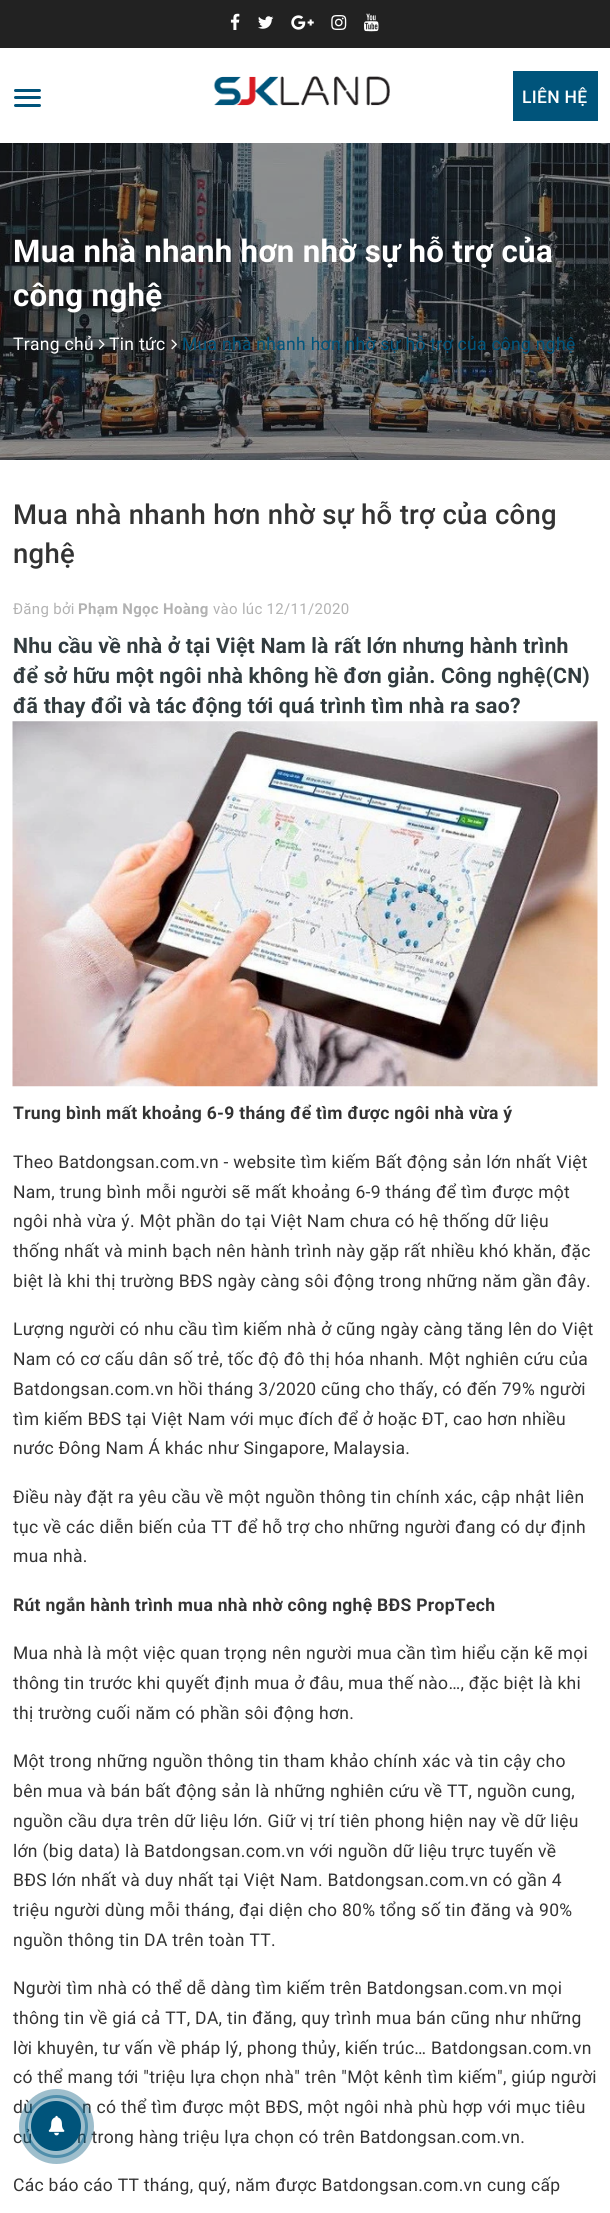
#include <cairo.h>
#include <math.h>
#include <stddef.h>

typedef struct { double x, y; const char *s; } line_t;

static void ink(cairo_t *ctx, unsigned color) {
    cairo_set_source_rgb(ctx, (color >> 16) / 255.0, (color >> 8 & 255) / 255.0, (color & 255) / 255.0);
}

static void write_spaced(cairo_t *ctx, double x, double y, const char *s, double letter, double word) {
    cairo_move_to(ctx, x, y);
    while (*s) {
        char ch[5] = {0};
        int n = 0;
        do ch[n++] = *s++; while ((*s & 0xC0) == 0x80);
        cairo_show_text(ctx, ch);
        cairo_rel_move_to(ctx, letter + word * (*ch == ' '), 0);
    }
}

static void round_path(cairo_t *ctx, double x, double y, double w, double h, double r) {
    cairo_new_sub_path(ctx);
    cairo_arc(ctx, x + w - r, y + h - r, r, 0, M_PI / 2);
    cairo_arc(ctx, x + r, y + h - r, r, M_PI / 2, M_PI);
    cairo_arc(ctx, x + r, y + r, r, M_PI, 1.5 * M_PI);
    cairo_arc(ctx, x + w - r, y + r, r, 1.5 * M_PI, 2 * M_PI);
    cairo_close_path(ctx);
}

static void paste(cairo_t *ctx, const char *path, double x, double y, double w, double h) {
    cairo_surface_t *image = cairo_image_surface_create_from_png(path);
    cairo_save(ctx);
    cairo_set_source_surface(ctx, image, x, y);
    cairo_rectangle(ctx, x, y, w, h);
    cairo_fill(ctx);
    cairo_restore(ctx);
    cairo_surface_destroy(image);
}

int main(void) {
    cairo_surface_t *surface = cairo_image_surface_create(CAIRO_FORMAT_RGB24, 610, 2213);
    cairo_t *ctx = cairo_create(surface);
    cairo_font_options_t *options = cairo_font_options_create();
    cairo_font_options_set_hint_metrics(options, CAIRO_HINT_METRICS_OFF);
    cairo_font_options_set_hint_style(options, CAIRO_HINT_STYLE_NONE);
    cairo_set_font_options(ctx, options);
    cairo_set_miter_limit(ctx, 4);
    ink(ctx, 0xFFFFFF);
    cairo_paint(ctx);
    ink(ctx, 0x222222);
    cairo_rectangle(ctx, 0, 0, 610, 48);
    cairo_fill(ctx);
    paste(ctx, "media/1.png", 230, 13, 10, 17);
    paste(ctx, "media/2.png", 258, 16, 16, 13);
    paste(ctx, "media/3.png", 291, 15, 23, 15);
    paste(ctx, "media/4.png", 331, 15, 16, 15);
    paste(ctx, "media/5.png", 364, 13, 15, 19);
    ink(ctx, 0x00547B);
    round_path(ctx, 14, 89, 27, 3, 1.5);
    cairo_fill(ctx);
    round_path(ctx, 14, 96, 27, 3, 1.5);
    cairo_fill(ctx);
    round_path(ctx, 14, 104, 27, 3, 1.5);
    cairo_fill(ctx);
    paste(ctx, "media/6.png", 213, 76, 177, 30);
    cairo_rectangle(ctx, 513, 71, 85, 50);
    cairo_fill(ctx);
    cairo_select_font_face(ctx, "Roboto Medium", CAIRO_FONT_SLANT_NORMAL, CAIRO_FONT_WEIGHT_NORMAL);
    cairo_set_font_size(ctx, 17.5);
    ink(ctx, 0xFFFFFF);
    write_spaced(ctx, 522, 103, "LIÊN HỆ", 0.3, 0);
    paste(ctx, "media/7.png", 0, 143, 610, 317);
    cairo_select_font_face(ctx, "Roboto", CAIRO_FONT_SLANT_NORMAL, CAIRO_FONT_WEIGHT_BOLD);
    cairo_set_font_size(ctx, 31.25);
    write_spaced(ctx, 13, 262, "Mua nhà nhanh hơn nhờ sự hỗ trợ của", 0.3, 0);
    write_spaced(ctx, 13, 306, "công nghệ", 0.3, 0);
    cairo_select_font_face(ctx, "Roboto", CAIRO_FONT_SLANT_NORMAL, CAIRO_FONT_WEIGHT_NORMAL);
    cairo_set_font_size(ctx, 17.5);
    write_spaced(ctx, 13, 350, "Trang chủ", 0.3, 0);
    paste(ctx, "media/8.png", 98, 339, 7, 11);
    write_spaced(ctx, 109, 350, "Tin tức", 0.3, 0);
    paste(ctx, "media/9.png", 171, 339, 6, 11);
    ink(ctx, 0x00547B);
    write_spaced(ctx, 182, 350, "Mua nhà nhanh hơn nhờ sự hỗ trợ của công nghệ", 0.3, 0);
    cairo_select_font_face(ctx, "Roboto Medium", CAIRO_FONT_SLANT_NORMAL, CAIRO_FONT_WEIGHT_NORMAL);
    cairo_set_font_size(ctx, 27.5);
    ink(ctx, 0x333333);
    write_spaced(ctx, 13, 524, "Mua nhà nhanh hơn nhờ sự hỗ trợ của công", 0.3, 0);
    write_spaced(ctx, 13, 563, "nghệ", 0.3, 0);
    cairo_select_font_face(ctx, "Roboto", CAIRO_FONT_SLANT_NORMAL, CAIRO_FONT_WEIGHT_NORMAL);
    cairo_set_font_size(ctx, 15);
    ink(ctx, 0xB2B2B2);
    write_spaced(ctx, 13, 614, "Đăng bởi", 0.3, 0);
    cairo_select_font_face(ctx, "Roboto", CAIRO_FONT_SLANT_NORMAL, CAIRO_FONT_WEIGHT_BOLD);
    write_spaced(ctx, 78, 614, "Phạm Ngọc Hoàng", 0.3, 0);
    cairo_select_font_face(ctx, "Roboto", CAIRO_FONT_SLANT_NORMAL, CAIRO_FONT_WEIGHT_NORMAL);
    write_spaced(ctx, 213, 614, "vào lúc 12/11/2020", 0.3, 0);
    cairo_select_font_face(ctx, "Roboto", CAIRO_FONT_SLANT_NORMAL, CAIRO_FONT_WEIGHT_BOLD);
    cairo_set_font_size(ctx, 21.25);
    ink(ctx, 0x323C3F);
    {
        static const line_t items[] = {
            {13, 653, "Nhu cầu về nhà ở tại Việt Nam là rất lớn nhưng hành trình"},
            {13, 683, "để sở hữu một ngôi nhà không hề đơn giản. Công nghệ(CN)"},
            {13, 713, "đã thay đổi và tác động tới quá trình tìm nhà ra sao?"},
        };
        for (size_t i = 0; i < sizeof items / sizeof *items; i++) {
            write_spaced(ctx, items[i].x, items[i].y, items[i].s, 0.2, 0);
        }
    }
    paste(ctx, "media/10.png", 12, 721, 586, 366);
    cairo_set_font_size(ctx, 17.5);
    ink(ctx, 0x333333);
    write_spaced(ctx, 13, 1119, "Trung bình mất khoảng 6-9 tháng để tìm được ngôi nhà vừa ý", 0.3, 0);
    cairo_select_font_face(ctx, "Roboto", CAIRO_FONT_SLANT_NORMAL, CAIRO_FONT_WEIGHT_NORMAL);
    {
        static const line_t items[] = {
            {13, 1168, "Theo Batdongsan.com.vn - website tìm kiếm Bất động sản lớn nhất Việt"},
            {13, 1198, "Nam, trung bình mỗi người sẽ mất khoảng 6-9 tháng để tìm được một"},
            {13, 1227, "ngôi nhà vừa ý. Một phần do tại Việt Nam chưa có hệ thống dữ liệu"},
            {13, 1257, "thống nhất và minh bạch nên hành trình này gặp rất nhiều khó khăn, đặc"},
            {13, 1287, "biệt là khi thị trường BĐS ngày càng sôi động trong những năm gần đây."},
            {13, 1335, "Lượng người có nhu cầu tìm kiếm nhà ở cũng ngày càng tăng lên do Việt"},
            {13, 1365, "Nam có cơ cấu dân số trẻ, tốc độ đô thị hóa nhanh. Một nghiên cứu của"},
            {13, 1395, "Batdongsan.com.vn hồi tháng 3/2020 cũng cho thấy, có đến 79% người"},
            {13, 1425, "tìm kiếm BĐS tại Việt Nam với mục đích để ở hoặc ĐT, cao hơn nhiều"},
            {13, 1454, "nước Đông Nam Á khác như Singapore, Malaysia."},
            {13, 1503, "Điều này đặt ra yêu cầu về một nguồn thông tin chính xác, cập nhật liên"},
            {13, 1533, "tục về các diễn biến của TT để hỗ trợ cho những người đang có dự định"},
            {13, 1562, "mua nhà."},
        };
        for (size_t i = 0; i < sizeof items / sizeof *items; i++) {
            write_spaced(ctx, items[i].x, items[i].y, items[i].s, 0.3, 0);
        }
    }
    cairo_select_font_face(ctx, "Roboto", CAIRO_FONT_SLANT_NORMAL, CAIRO_FONT_WEIGHT_BOLD);
    write_spaced(ctx, 13, 1611, "Rút ngắn hành trình mua nhà nhờ công nghệ BĐS PropTech", 0.3, 0);
    cairo_select_font_face(ctx, "Roboto", CAIRO_FONT_SLANT_NORMAL, CAIRO_FONT_WEIGHT_NORMAL);
    {
        static const line_t items[] = {
            {13, 1659, "Mua nhà là một việc quan trọng nên người mua cần tìm hiểu cặn kẽ mọi"},
            {13, 1689, "thông tin trước khi quyết định mua ở đâu, mua thế nào…, đặc biệt là khi"},
            {13, 1719, "thị trường cuối năm có phần sôi động hơn."},
            {13, 1767, "Một trong những nguồn thông tin tham khảo chính xác và tin cậy cho"},
            {13, 1797, "bên mua và bán bất động sản là những nghiên cứu về TT, nguồn cung,"},
            {13, 1827, "nguồn cầu dựa trên dữ liệu lớn. Giữ vị trí tiên phong hiện nay về dữ liệu"},
            {13, 1857, "lớn (big data) là Batdongsan.com.vn với nguồn dữ liệu trực tuyến về"},
            {13, 1886, "BĐS lớn nhất và duy nhất tại Việt Nam. Batdongsan.com.vn có gần 4"},
            {13, 1916, "triệu người dùng mỗi tháng, đại diện cho 80% tổng số tin đăng và 90%"},
            {13, 1946, "nguồn thông tin DA trên toàn TT."},
            {13, 1994, "Người tìm nhà có thể dễ dàng tìm kiếm trên Batdongsan.com.vn mọi"},
            {13, 2024, "thông tin về giá cả TT, DA, tin đăng, quy trình mua bán cũng như những"},
            {13, 2054, "lời khuyên, tư vấn về pháp lý, phong thủy, kiến trúc… Batdongsan.com.vn"},
            {13, 2083, "có thể mang tới \"triệu lựa chọn nhà\" trên \"Một kênh tìm kiếm\", giúp người"},
            {13, 2113, "dù"},
            {82, 2113, "n có thể tìm được một BĐS, một ngôi nhà phù hợp với mục tiêu"},
            {13, 2143, "củ"},
            {77, 2143, "h trong hàng triệu lựa chọn có trên Batdongsan.com.vn."},
            {13, 2191, "Các báo cáo TT tháng, quý, năm được Batdongsan.com.vn cung cấp"},
        };
        for (size_t i = 0; i < sizeof items / sizeof *items; i++) {
            write_spaced(ctx, items[i].x, items[i].y, items[i].s, 0.3, 0);
        }
    }
    cairo_new_path(ctx);
    cairo_arc(ctx, 56.5, 2126.5, 30, 0, 2 * M_PI);
    cairo_set_source_rgba(ctx, 0, 0.396, 0.584, 0.5);
    cairo_set_line_width(ctx, 3);
    cairo_stroke(ctx);
    cairo_set_source_rgba(ctx, 0, 0.329, 0.482, 0.38);
    cairo_arc(ctx, 56.5, 2126.5, 37.5, 0, 2 * M_PI);
    cairo_fill(ctx);
    ink(ctx, 0x00547B);
    cairo_arc(ctx, 56, 2126, 25, 0, 2 * M_PI);
    cairo_fill(ctx);
    paste(ctx, "media/11.png", 48, 2115, 17, 21);
    cairo_surface_write_to_png(surface, "image.png");
    cairo_font_options_destroy(options);
    cairo_destroy(ctx);
    cairo_surface_destroy(surface);
    return 0;
}
